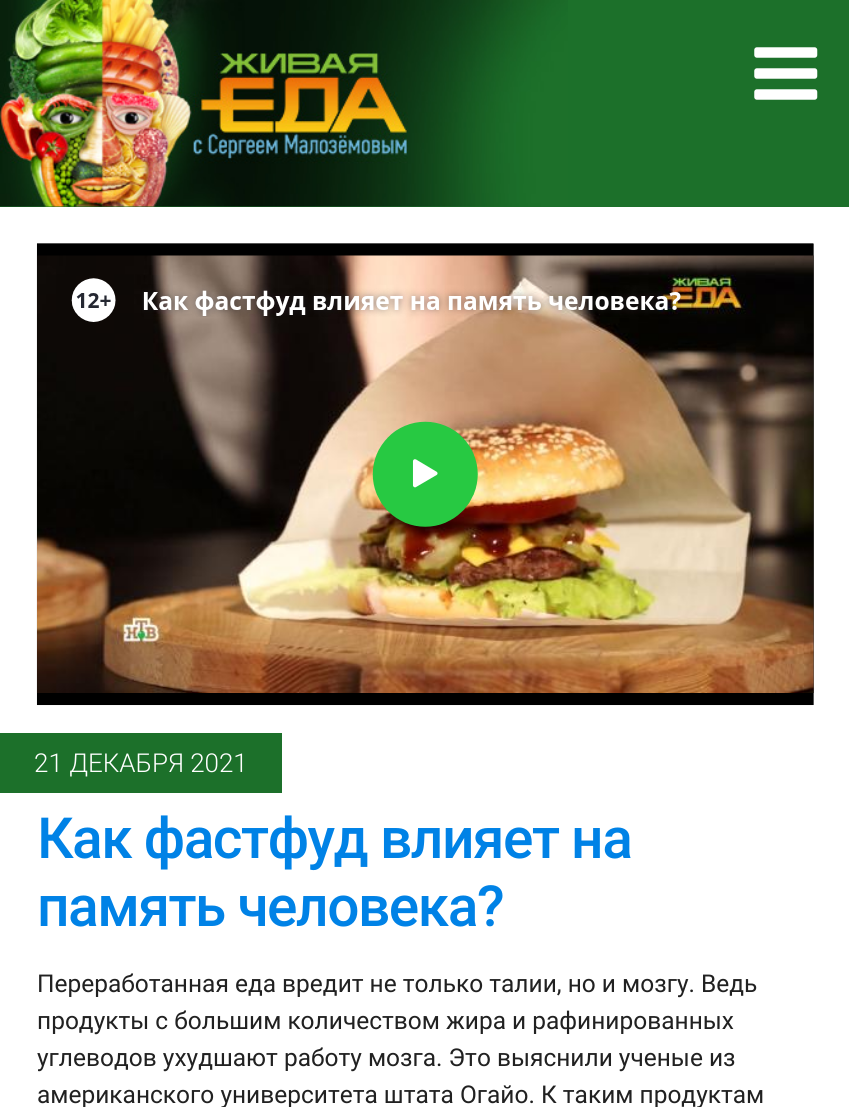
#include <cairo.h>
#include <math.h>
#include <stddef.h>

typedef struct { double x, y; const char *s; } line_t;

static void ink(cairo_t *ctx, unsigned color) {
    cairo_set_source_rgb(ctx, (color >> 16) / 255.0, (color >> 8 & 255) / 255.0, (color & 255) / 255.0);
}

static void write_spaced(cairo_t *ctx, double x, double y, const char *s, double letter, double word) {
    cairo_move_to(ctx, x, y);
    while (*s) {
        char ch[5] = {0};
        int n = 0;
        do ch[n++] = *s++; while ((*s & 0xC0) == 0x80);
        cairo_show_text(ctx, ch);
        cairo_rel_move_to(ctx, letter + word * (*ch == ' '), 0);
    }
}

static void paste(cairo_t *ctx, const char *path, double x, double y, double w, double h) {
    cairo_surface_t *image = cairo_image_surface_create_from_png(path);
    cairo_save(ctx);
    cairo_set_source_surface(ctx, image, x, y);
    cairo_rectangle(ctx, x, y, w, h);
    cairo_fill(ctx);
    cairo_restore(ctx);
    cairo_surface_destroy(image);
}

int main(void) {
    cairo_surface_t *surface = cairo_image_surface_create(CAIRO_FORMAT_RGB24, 849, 1107);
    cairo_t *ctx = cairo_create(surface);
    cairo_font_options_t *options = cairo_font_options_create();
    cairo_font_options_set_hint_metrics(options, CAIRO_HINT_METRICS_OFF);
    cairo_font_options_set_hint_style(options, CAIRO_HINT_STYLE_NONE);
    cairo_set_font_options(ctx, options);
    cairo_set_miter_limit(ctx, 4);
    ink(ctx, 0xFFFFFF);
    cairo_paint(ctx);
    ink(ctx, 0x1C702A);
    cairo_rectangle(ctx, 0, 0, 849, 207);
    cairo_fill(ctx);
    paste(ctx, "media/1.png", 0, 0, 568, 207);
    paste(ctx, "media/2.png", 754, 47, 64, 53);
    paste(ctx, "media/3.png", 36, 243, 778, 463);
    cairo_rectangle(ctx, 0, 733, 282, 60);
    cairo_fill(ctx);
    cairo_select_font_face(ctx, "Roboto Light", CAIRO_FONT_SLANT_NORMAL, CAIRO_FONT_WEIGHT_NORMAL);
    cairo_set_font_size(ctx, 26);
    ink(ctx, 0xFFFFFF);
    cairo_move_to(ctx, 34, 772);
    cairo_show_text(ctx, "21 ДЕКАБРЯ 2021");
    cairo_select_font_face(ctx, "Roboto Medium", CAIRO_FONT_SLANT_NORMAL, CAIRO_FONT_WEIGHT_NORMAL);
    cairo_set_font_size(ctx, 56.75);
    ink(ctx, 0x0082E6);
    write_spaced(ctx, 37, 858, "Как фастфуд влияет на", -1.5, 0);
    write_spaced(ctx, 37, 926, "память человека?", -1.5, 0);
    cairo_select_font_face(ctx, "Roboto", CAIRO_FONT_SLANT_NORMAL, CAIRO_FONT_WEIGHT_NORMAL);
    cairo_set_font_size(ctx, 24.5);
    ink(ctx, 0x212121);
    {
        static const line_t items[] = {
            {37, 992, "Переработанная еда вредит не только талии, но и мозгу. Ведь"},
            {37, 1029, "продукты с большим количеством жира и рафинированных"},
            {37, 1066, "углеводов ухудшают работу мозга. Это выяснили ученые из"},
            {37, 1103, "американского университета штата Огайо. К таким продуктам"},
        };
        for (size_t i = 0; i < sizeof items / sizeof *items; i++) {
            cairo_move_to(ctx, items[i].x, items[i].y);
            cairo_show_text(ctx, items[i].s);
        }
    }
    cairo_surface_write_to_png(surface, "image.png");
    cairo_font_options_destroy(options);
    cairo_destroy(ctx);
    cairo_surface_destroy(surface);
    return 0;
}
